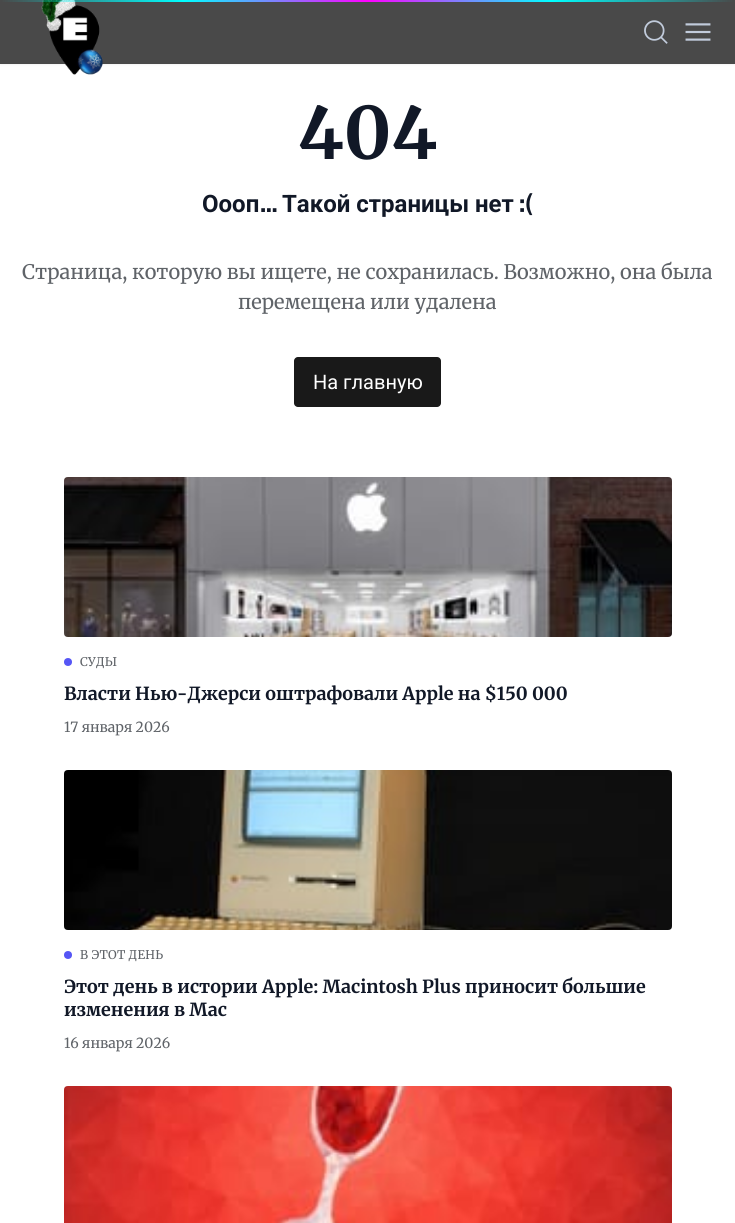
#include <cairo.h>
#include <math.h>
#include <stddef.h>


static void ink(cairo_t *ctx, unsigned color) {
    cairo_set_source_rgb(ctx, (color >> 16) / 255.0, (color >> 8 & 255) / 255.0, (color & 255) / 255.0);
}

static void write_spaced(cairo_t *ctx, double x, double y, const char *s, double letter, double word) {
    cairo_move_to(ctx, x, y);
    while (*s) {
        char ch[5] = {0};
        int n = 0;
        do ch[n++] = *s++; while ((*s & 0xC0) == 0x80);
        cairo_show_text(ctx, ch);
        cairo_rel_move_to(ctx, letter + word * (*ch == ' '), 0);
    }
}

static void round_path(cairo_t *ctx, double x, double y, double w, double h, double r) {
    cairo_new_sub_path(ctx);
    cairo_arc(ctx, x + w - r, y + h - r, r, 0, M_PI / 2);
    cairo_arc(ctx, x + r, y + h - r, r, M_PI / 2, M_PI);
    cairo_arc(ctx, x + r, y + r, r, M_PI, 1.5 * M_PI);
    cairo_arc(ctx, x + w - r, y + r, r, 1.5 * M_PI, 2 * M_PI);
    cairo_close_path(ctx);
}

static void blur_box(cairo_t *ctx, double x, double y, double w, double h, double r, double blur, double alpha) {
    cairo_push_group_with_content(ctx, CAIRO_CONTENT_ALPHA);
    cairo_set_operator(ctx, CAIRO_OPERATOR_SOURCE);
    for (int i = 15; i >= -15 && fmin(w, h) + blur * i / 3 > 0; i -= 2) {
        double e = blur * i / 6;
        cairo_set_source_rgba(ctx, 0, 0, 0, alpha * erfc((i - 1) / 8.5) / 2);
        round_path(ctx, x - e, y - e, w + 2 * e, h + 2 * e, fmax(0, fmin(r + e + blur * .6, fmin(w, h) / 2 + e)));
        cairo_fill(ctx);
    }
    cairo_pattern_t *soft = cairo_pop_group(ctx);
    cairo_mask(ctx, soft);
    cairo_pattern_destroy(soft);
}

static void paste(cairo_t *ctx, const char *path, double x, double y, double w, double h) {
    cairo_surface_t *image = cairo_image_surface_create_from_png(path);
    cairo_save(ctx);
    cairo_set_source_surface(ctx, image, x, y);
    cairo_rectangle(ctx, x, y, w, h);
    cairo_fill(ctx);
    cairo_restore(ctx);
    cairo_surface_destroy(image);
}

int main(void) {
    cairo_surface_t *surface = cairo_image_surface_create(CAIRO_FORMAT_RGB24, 735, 1223);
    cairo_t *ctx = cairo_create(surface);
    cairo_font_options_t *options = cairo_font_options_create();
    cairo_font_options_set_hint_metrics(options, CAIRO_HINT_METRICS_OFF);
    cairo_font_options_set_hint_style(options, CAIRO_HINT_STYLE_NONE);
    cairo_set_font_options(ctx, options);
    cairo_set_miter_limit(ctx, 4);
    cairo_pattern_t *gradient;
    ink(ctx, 0xFFFFFF);
    cairo_paint(ctx);
    ink(ctx, 0x000000);
    blur_box(ctx, 0, 1, 735, 64, 0, 1, 0.05);
    ink(ctx, 0x494949);
    cairo_rectangle(ctx, 0, 0, 735, 64);
    cairo_fill(ctx);
    paste(ctx, "media/1.png", 41, 0, 62, 75);
    gradient = cairo_pattern_create_linear(0, 1, 735, 1);
    cairo_pattern_add_color_stop_rgba(gradient, 0, 0, 1, 1, 0);
    cairo_pattern_add_color_stop_rgba(gradient, 0.25, 0, 1, 1, 1);
    cairo_pattern_add_color_stop_rgba(gradient, 0.5, 1, 0, 1, 1);
    cairo_pattern_add_color_stop_rgba(gradient, 0.75, 0, 1, 1, 1);
    cairo_pattern_add_color_stop_rgba(gradient, 1, 0, 1, 1, 0);
    cairo_set_source(ctx, gradient);
    cairo_pattern_destroy(gradient);
    cairo_rectangle(ctx, 0, 0, 735, 2);
    cairo_fill(ctx);
    paste(ctx, "media/2.png", 644, 20, 24, 24);
    paste(ctx, "media/3.png", 685, 23, 26, 18);
    cairo_select_font_face(ctx, "Merriweather Light", CAIRO_FONT_SLANT_NORMAL, CAIRO_FONT_WEIGHT_NORMAL);
    cairo_set_font_size(ctx, 72);
    ink(ctx, 0x111827);
    cairo_move_to(ctx, 298, 159);
    cairo_show_text(ctx, "404");
    cairo_select_font_face(ctx, "Roboto", CAIRO_FONT_SLANT_NORMAL, CAIRO_FONT_WEIGHT_BOLD);
    cairo_set_font_size(ctx, 24);
    cairo_move_to(ctx, 202, 212);
    cairo_show_text(ctx, "Оооп");
    cairo_select_font_face(ctx, "Public Sans", CAIRO_FONT_SLANT_NORMAL, CAIRO_FONT_WEIGHT_BOLD);
    cairo_move_to(ctx, 260, 212);
    cairo_show_text(ctx, "...");
    cairo_select_font_face(ctx, "Roboto", CAIRO_FONT_SLANT_NORMAL, CAIRO_FONT_WEIGHT_BOLD);
    cairo_move_to(ctx, 282, 212);
    cairo_show_text(ctx, "Такой страницы нет");
    cairo_select_font_face(ctx, "Public Sans", CAIRO_FONT_SLANT_NORMAL, CAIRO_FONT_WEIGHT_BOLD);
    cairo_move_to(ctx, 519, 212);
    cairo_show_text(ctx, ":(");
    cairo_select_font_face(ctx, "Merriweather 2 Light", CAIRO_FONT_SLANT_NORMAL, CAIRO_FONT_WEIGHT_NORMAL);
    cairo_set_font_size(ctx, 20);
    ink(ctx, 0x5F6368);
    cairo_move_to(ctx, 22, 279);
    cairo_show_text(ctx, "Страница, которую вы ищете, не сохранилась. Возможно, она была");
    cairo_move_to(ctx, 238, 309);
    cairo_show_text(ctx, "перемещена или удалена");
    ink(ctx, 0x191919);
    round_path(ctx, 294, 357, 147, 50, 4);
    cairo_fill(ctx);
    cairo_select_font_face(ctx, "Roboto", CAIRO_FONT_SLANT_NORMAL, CAIRO_FONT_WEIGHT_NORMAL);
    ink(ctx, 0xFFFFFF);
    cairo_move_to(ctx, 313, 389);
    cairo_show_text(ctx, "На главную");
    paste(ctx, "media/4.png", 64, 477, 608, 160);
    ink(ctx, 0x5656F5);
    cairo_arc(ctx, 68, 662, 4, 0, 2 * M_PI);
    cairo_fill(ctx);
    cairo_select_font_face(ctx, "Merriweather 2 Light", CAIRO_FONT_SLANT_NORMAL, CAIRO_FONT_WEIGHT_NORMAL);
    cairo_set_font_size(ctx, 12);
    ink(ctx, 0x5F6368);
    write_spaced(ctx, 80, 666, "СУДЫ", 0.25, 0);
    cairo_select_font_face(ctx, "Merriweather Light", CAIRO_FONT_SLANT_NORMAL, CAIRO_FONT_WEIGHT_NORMAL);
    cairo_set_font_size(ctx, 18);
    ink(ctx, 0x111827);
    cairo_move_to(ctx, 64, 700);
    cairo_show_text(ctx, "Власти Нью-Джерси оштрафовали Apple на $150 000");
    cairo_select_font_face(ctx, "Merriweather 2 Light", CAIRO_FONT_SLANT_NORMAL, CAIRO_FONT_WEIGHT_NORMAL);
    cairo_set_font_size(ctx, 14);
    ink(ctx, 0x5F6368);
    cairo_move_to(ctx, 64, 732);
    cairo_show_text(ctx, "17 января 2026");
    paste(ctx, "media/5.png", 64, 770, 608, 160);
    ink(ctx, 0x5656F5);
    cairo_arc(ctx, 68, 955, 4, 0, 2 * M_PI);
    cairo_fill(ctx);
    cairo_set_font_size(ctx, 12);
    ink(ctx, 0x5F6368);
    write_spaced(ctx, 80, 959, "В ЭТОТ ДЕНЬ", 0.25, 0);
    cairo_select_font_face(ctx, "Merriweather Light", CAIRO_FONT_SLANT_NORMAL, CAIRO_FONT_WEIGHT_NORMAL);
    cairo_set_font_size(ctx, 18);
    ink(ctx, 0x111827);
    cairo_move_to(ctx, 64, 993);
    cairo_show_text(ctx, "Этот день в истории Apple: Macintosh Plus приносит большие");
    cairo_move_to(ctx, 64, 1016);
    cairo_show_text(ctx, "изменения в Mac");
    cairo_select_font_face(ctx, "Merriweather 2 Light", CAIRO_FONT_SLANT_NORMAL, CAIRO_FONT_WEIGHT_NORMAL);
    cairo_set_font_size(ctx, 14);
    ink(ctx, 0x5F6368);
    cairo_move_to(ctx, 64, 1048);
    cairo_show_text(ctx, "16 января 2026");
    paste(ctx, "media/6.png", 64, 1086, 608, 137);
    cairo_surface_write_to_png(surface, "image.png");
    cairo_font_options_destroy(options);
    cairo_destroy(ctx);
    cairo_surface_destroy(surface);
    return 0;
}
